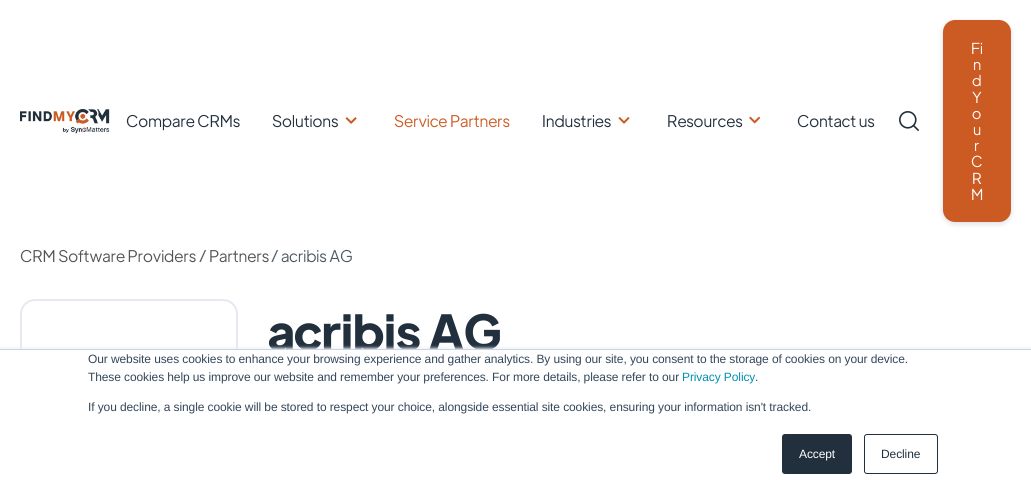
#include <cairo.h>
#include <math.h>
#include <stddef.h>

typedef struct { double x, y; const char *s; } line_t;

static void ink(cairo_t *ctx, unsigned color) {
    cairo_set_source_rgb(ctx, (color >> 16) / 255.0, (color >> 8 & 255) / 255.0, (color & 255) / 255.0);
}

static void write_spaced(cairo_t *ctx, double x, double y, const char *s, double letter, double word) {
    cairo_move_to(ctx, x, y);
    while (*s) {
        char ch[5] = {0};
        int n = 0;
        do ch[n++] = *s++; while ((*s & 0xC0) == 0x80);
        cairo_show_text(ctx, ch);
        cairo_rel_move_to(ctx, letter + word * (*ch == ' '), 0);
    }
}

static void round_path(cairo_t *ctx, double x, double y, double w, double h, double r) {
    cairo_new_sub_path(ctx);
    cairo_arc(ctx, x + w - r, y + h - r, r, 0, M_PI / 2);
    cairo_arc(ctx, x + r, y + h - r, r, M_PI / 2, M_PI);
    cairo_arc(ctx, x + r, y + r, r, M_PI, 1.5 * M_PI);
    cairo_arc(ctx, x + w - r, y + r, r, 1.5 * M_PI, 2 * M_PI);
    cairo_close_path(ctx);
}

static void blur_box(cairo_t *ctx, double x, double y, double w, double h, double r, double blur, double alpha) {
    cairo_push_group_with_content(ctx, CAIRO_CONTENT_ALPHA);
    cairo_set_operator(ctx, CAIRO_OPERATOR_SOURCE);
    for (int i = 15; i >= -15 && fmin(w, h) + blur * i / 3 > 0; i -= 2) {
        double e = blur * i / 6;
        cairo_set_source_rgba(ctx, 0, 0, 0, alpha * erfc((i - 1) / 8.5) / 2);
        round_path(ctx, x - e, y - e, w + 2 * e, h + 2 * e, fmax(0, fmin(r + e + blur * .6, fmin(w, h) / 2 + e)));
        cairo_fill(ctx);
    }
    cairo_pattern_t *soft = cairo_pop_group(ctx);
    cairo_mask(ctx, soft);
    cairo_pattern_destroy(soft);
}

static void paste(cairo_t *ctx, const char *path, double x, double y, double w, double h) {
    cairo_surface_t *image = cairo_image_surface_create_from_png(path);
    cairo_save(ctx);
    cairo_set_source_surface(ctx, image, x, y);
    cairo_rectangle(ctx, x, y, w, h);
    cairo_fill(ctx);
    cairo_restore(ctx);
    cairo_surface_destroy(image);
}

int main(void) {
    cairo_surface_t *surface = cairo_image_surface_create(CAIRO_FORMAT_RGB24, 1031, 480);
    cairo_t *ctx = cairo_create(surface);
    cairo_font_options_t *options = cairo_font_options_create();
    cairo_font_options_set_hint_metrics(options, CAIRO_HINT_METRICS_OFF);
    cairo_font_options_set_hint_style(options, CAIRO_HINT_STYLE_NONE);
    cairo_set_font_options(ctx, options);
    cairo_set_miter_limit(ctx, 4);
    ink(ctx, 0xFFFFFF);
    cairo_paint(ctx);
    paste(ctx, "media/1.png", 20, 109, 90, 25);
    cairo_select_font_face(ctx, "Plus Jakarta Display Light", CAIRO_FONT_SLANT_NORMAL, CAIRO_FONT_WEIGHT_NORMAL);
    cairo_set_font_size(ctx, 16);
    ink(ctx, 0x222F3D);
    write_spaced(ctx, 126, 127, "Compare CRMs", -0.1, 0);
    write_spaced(ctx, 272, 127, "Solutions", -0.1, 0);
    paste(ctx, "media/2.png", 345, 117, 12, 7);
    ink(ctx, 0xCC5B23);
    write_spaced(ctx, 394, 127, "Service Partners", -0.1, 0);
    ink(ctx, 0x222F3D);
    write_spaced(ctx, 542, 127, "Industries", -0.1, 0);
    paste(ctx, "media/3.png", 618, 117, 12, 7);
    write_spaced(ctx, 667, 127, "Resources", -0.1, 0);
    paste(ctx, "media/4.png", 749, 116, 12, 8);
    write_spaced(ctx, 797, 127, "Contact us", -0.1, 0);
    paste(ctx, "media/5.png", 899, 111, 20, 20);
    ink(ctx, 0x1F2559);
    blur_box(ctx, 943, 22, 68, 202, 12, 3, 0.16);
    ink(ctx, 0xCC5B23);
    round_path(ctx, 943, 20, 68, 202, 12);
    cairo_fill(ctx);
    cairo_set_font_size(ctx, 15);
    ink(ctx, 0xFFFFFF);
    {
        static const line_t items[] = {
            {971, 54, "Fi"},
            {973, 70, "n"},
            {972, 86, "d"},
            {972, 103, "Y"},
            {972, 119, "o"},
            {973, 135, "u"},
            {974, 151, "r"},
            {971, 167, "C"},
            {972, 184, "R"},
            {971, 200, "M"},
        };
        for (size_t i = 0; i < sizeof items / sizeof *items; i++) {
            cairo_move_to(ctx, items[i].x, items[i].y);
            cairo_show_text(ctx, items[i].s);
        }
    }
    cairo_set_font_size(ctx, 16);
    ink(ctx, 0x555454);
    write_spaced(ctx, 20, 262, "CRM Software Providers", -0.1, 0);
    ink(ctx, 0x4E5863);
    write_spaced(ctx, 199, 262, "/", -0.1, 0);
    ink(ctx, 0x555454);
    write_spaced(ctx, 209, 262, "Partners", -0.1, 0);
    ink(ctx, 0x4E5863);
    write_spaced(ctx, 271, 262, "/ acribis AG", -0.1, 0);
    round_path(ctx, 21, 300, 216, 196, 14);
    ink(ctx, 0xE7E8F1);
    cairo_stroke(ctx);
    cairo_select_font_face(ctx, "Plus Jakarta Display", CAIRO_FONT_SLANT_NORMAL, CAIRO_FONT_WEIGHT_BOLD);
    cairo_set_font_size(ctx, 48);
    ink(ctx, 0x222F3D);
    write_spaced(ctx, 268, 350, "acribis AG", -0.1, 0);
    ink(ctx, 0xEAF0F6);
    blur_box(ctx, 0, 348, 1031, 131, 0, 1.5, 1);
    ink(ctx, 0xFFFFFF);
    cairo_rectangle(ctx, 0, 350, 1031, 130);
    cairo_fill(ctx);
    ink(ctx, 0xCBD6E2);
    cairo_rectangle(ctx, 0, 349, 1031, 1);
    cairo_fill(ctx);
    cairo_select_font_face(ctx, "Liberation Sans", CAIRO_FONT_SLANT_NORMAL, CAIRO_FONT_WEIGHT_NORMAL);
    cairo_set_font_size(ctx, 12);
    ink(ctx, 0x33475B);
    write_spaced(ctx, 88, 363, "Our website uses cookies to enhance your browsing experience and gather analytics. By using our site, you consent to the storage of cookies on your device.", -0.1, 0);
    write_spaced(ctx, 88, 381, "These cookies help us improve our website and remember your preferences. For more details, please refer to our", -0.1, 0);
    ink(ctx, 0x0091AE);
    write_spaced(ctx, 682, 381, "Privacy Policy", -0.1, 0);
    ink(ctx, 0x33475B);
    write_spaced(ctx, 755, 381, ".", -0.1, 0);
    write_spaced(ctx, 88, 411, "If you decline, a single cookie will be stored to respect your choice, alongside essential site cookies, ensuring your information isn't tracked.", -0.1, 0);
    ink(ctx, 0x222F3D);
    round_path(ctx, 782.5, 434.5, 69, 39, 2.5);
    cairo_fill_preserve(ctx);
    cairo_set_line_width(ctx, 1);
    cairo_stroke(ctx);
    ink(ctx, 0xFFFFFF);
    write_spaced(ctx, 799, 458, "Accept", -0.1, 0);
    round_path(ctx, 864.5, 434.5, 73, 39, 2.5);
    ink(ctx, 0x222F3D);
    cairo_stroke(ctx);
    write_spaced(ctx, 881, 458, "Decline", -0.1, 0);
    cairo_surface_write_to_png(surface, "image.png");
    cairo_font_options_destroy(options);
    cairo_destroy(ctx);
    cairo_surface_destroy(surface);
    return 0;
}
